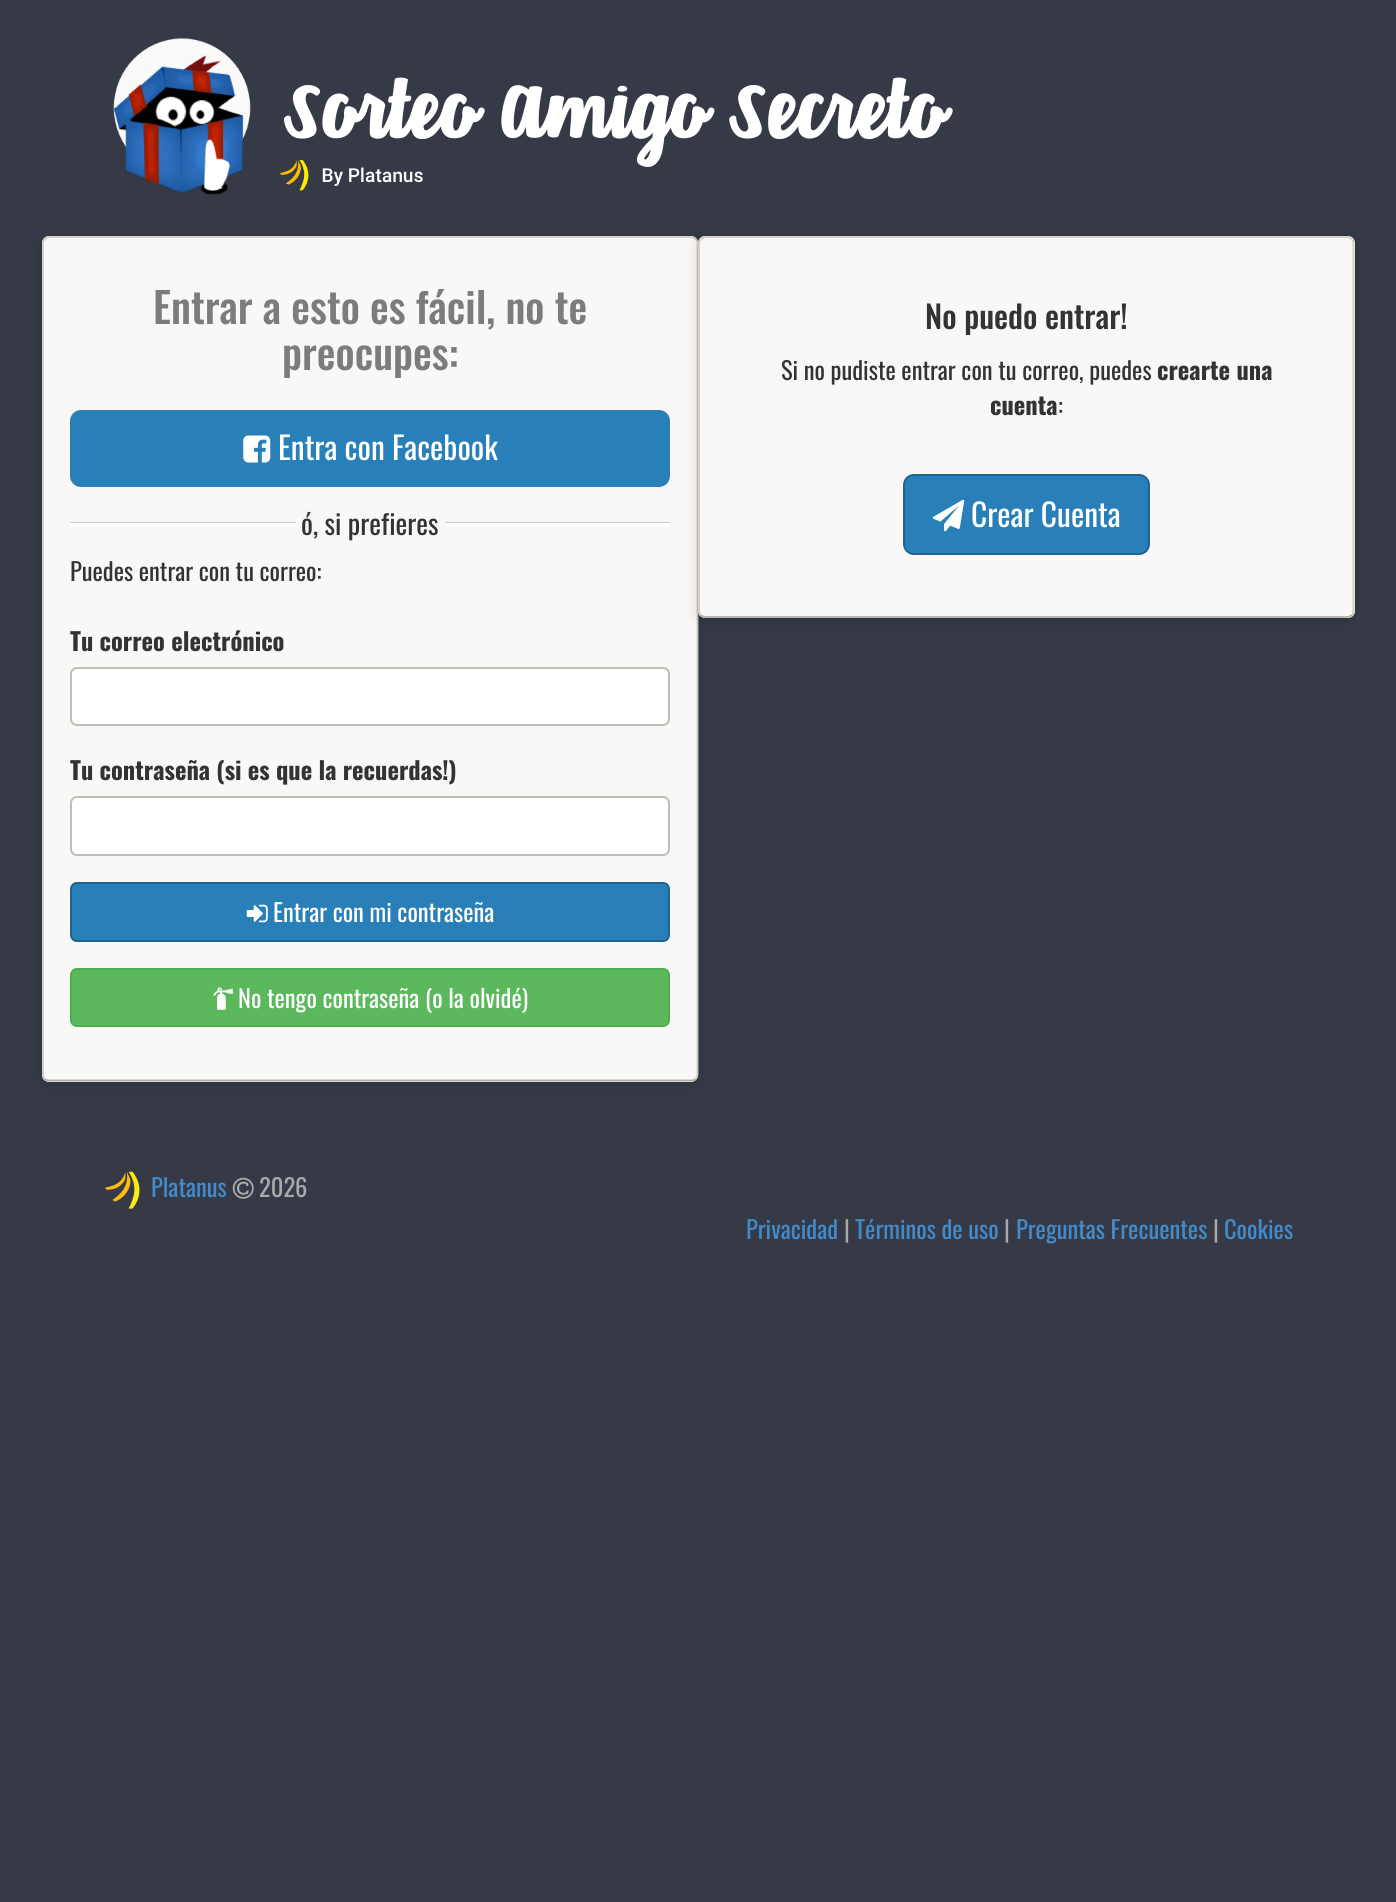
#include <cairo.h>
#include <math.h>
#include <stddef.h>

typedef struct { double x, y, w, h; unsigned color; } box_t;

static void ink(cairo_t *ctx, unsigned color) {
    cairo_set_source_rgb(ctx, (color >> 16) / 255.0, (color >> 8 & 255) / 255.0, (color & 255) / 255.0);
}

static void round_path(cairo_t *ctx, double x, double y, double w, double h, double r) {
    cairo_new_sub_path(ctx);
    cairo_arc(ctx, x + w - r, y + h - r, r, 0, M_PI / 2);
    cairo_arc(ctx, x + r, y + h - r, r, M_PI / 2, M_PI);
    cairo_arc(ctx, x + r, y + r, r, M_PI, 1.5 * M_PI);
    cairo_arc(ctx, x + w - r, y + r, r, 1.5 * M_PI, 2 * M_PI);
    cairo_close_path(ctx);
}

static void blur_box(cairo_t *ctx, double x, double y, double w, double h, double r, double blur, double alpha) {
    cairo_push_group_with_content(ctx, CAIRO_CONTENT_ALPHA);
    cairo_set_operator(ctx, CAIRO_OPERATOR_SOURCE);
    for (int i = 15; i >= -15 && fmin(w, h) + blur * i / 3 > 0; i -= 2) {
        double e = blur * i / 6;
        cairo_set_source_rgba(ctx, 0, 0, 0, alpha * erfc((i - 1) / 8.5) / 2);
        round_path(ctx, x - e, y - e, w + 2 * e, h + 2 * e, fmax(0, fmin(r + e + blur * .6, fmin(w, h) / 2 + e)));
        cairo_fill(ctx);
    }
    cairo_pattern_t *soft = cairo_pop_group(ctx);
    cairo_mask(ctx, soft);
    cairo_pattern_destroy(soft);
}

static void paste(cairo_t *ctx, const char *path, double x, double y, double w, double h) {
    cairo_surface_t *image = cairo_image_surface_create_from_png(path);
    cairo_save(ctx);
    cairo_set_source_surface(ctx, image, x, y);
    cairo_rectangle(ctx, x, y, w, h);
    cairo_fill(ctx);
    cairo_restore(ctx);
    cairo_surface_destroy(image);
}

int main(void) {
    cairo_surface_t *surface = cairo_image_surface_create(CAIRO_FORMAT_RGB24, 1396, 1902);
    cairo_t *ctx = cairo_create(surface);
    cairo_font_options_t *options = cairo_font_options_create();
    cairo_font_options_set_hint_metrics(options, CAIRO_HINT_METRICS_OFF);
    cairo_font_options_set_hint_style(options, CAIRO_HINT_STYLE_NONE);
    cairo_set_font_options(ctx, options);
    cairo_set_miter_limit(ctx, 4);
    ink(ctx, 0x363A46);
    cairo_paint(ctx);
    paste(ctx, "media/1.png", 113, 38, 138, 157);
    cairo_select_font_face(ctx, "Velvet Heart", CAIRO_FONT_SLANT_NORMAL, CAIRO_FONT_WEIGHT_NORMAL);
    cairo_set_font_size(ctx, 143.5);
    ink(ctx, 0xFFFFFF);
    cairo_move_to(ctx, 285, 138);
    cairo_show_text(ctx, "Sorteo Amigo Secreto");
    paste(ctx, "media/2.png", 280, 160, 143, 31);
    ink(ctx, 0x000000);
    blur_box(ctx, 42, 240, 656, 845, 7, 7, 0.15);
    ink(ctx, 0xF9F8F7);
    round_path(ctx, 42, 236, 656, 846, 7);
    cairo_fill(ctx);
    cairo_new_path(ctx);
    cairo_move_to(ctx, 695.5, 1079);
    cairo_curve_to(ctx, 694.5, 1080, 693, 1080.5, 691, 1080.5);
    cairo_line_to(ctx, 49, 1080.5);
    cairo_curve_to(ctx, 47.5, 1080.5, 46, 1080, 44.5, 1079);
    ink(ctx, 0xB2ACA4);
    cairo_set_line_width(ctx, 1.8);
    cairo_stroke(ctx);
    cairo_new_path(ctx);
    cairo_move_to(ctx, 44.5, 1079);
    cairo_curve_to(ctx, 43.5, 1077.5, 43, 1076, 43, 1074.5);
    cairo_line_to(ctx, 43, 243);
    cairo_curve_to(ctx, 43, 241.5, 43.5, 240, 44.5, 239);
    cairo_curve_to(ctx, 46, 238, 47.5, 237, 49, 237);
    cairo_line_to(ctx, 691, 237);
    cairo_curve_to(ctx, 693, 237, 694.5, 238, 695.5, 239);
    cairo_curve_to(ctx, 696.5, 240, 697.5, 241.5, 697.5, 243);
    cairo_line_to(ctx, 697.5, 1074.5);
    cairo_curve_to(ctx, 697.5, 1076, 696.5, 1077.5, 695.5, 1079);
    ink(ctx, 0xCECAC4);
    cairo_stroke(ctx);
    cairo_select_font_face(ctx, "Oswald Medium", CAIRO_FONT_SLANT_NORMAL, CAIRO_FONT_WEIGHT_NORMAL);
    cairo_set_font_size(ctx, 42);
    ink(ctx, 0x7D7C7C);
    cairo_move_to(ctx, 153, 324);
    cairo_show_text(ctx, "Entrar a esto es fácil, no te");
    cairo_move_to(ctx, 282, 370);
    cairo_show_text(ctx, "preocupes:");
    ink(ctx, 0x2980B9);
    round_path(ctx, 70, 410, 600, 77, 11);
    cairo_fill(ctx);
    paste(ctx, "media/3.png", 243, 435, 28, 28);
    cairo_select_font_face(ctx, "Oswald", CAIRO_FONT_SLANT_NORMAL, CAIRO_FONT_WEIGHT_NORMAL);
    cairo_set_font_size(ctx, 31.5);
    ink(ctx, 0xFFFFFF);
    cairo_move_to(ctx, 278, 460);
    cairo_show_text(ctx, "Entra con Facebook");
    {
        static const box_t items[] = {
            {70, 522, 600, 1, 0xCECAC4},
            {70, 523, 600, 4, 0xFFFFFF},
            {296, 522, 149, 5, 0xF9F8F7},
        };
        for (size_t i = 0; i < sizeof items / sizeof *items; i++) {
            ink(ctx, items[i].color);
            cairo_rectangle(ctx, items[i].x, items[i].y, items[i].w, items[i].h);
            cairo_fill(ctx);
        }
    }
    cairo_set_font_size(ctx, 28);
    ink(ctx, 0x333333);
    cairo_move_to(ctx, 301, 535);
    cairo_show_text(ctx, "ó, si prefieres");
    cairo_set_font_size(ctx, 24.5);
    cairo_move_to(ctx, 70, 581);
    cairo_show_text(ctx, "Puedes entrar con tu correo:");
    cairo_select_font_face(ctx, "Oswald", CAIRO_FONT_SLANT_NORMAL, CAIRO_FONT_WEIGHT_BOLD);
    cairo_move_to(ctx, 70, 651);
    cairo_show_text(ctx, "Tu correo electrónico");
    ink(ctx, 0xFFFFFF);
    round_path(ctx, 71, 668, 598, 57, 6);
    cairo_fill_preserve(ctx);
    ink(ctx, 0xC1BDB8);
    cairo_set_line_width(ctx, 2);
    cairo_stroke(ctx);
    ink(ctx, 0x333333);
    cairo_move_to(ctx, 70, 780);
    cairo_show_text(ctx, "Tu contraseña (si es que la recuerdas!)");
    ink(ctx, 0xFFFFFF);
    round_path(ctx, 71, 797, 598, 58, 6);
    cairo_fill_preserve(ctx);
    ink(ctx, 0xC1BDB8);
    cairo_stroke(ctx);
    ink(ctx, 0x2980B9);
    round_path(ctx, 71, 883, 598, 58, 6);
    cairo_fill_preserve(ctx);
    ink(ctx, 0x20638F);
    cairo_stroke(ctx);
    paste(ctx, "media/4.png", 246, 904, 22, 19);
    cairo_select_font_face(ctx, "Oswald", CAIRO_FONT_SLANT_NORMAL, CAIRO_FONT_WEIGHT_NORMAL);
    ink(ctx, 0xFFFFFF);
    cairo_move_to(ctx, 273, 922);
    cairo_show_text(ctx, "Entrar con mi contraseña");
    ink(ctx, 0x5CB85C);
    round_path(ctx, 71, 969, 598, 57, 6);
    cairo_fill_preserve(ctx);
    ink(ctx, 0x4CAE4C);
    cairo_stroke(ctx);
    paste(ctx, "media/5.png", 213, 987, 20, 23);
    ink(ctx, 0xFFFFFF);
    cairo_move_to(ctx, 238, 1008);
    cairo_show_text(ctx, "No tengo contraseña (o la olvidé)");
    ink(ctx, 0x000000);
    blur_box(ctx, 698, 240, 657, 381, 7, 7, 0.15);
    ink(ctx, 0xF9F8F7);
    round_path(ctx, 698, 236, 657, 382, 7);
    cairo_fill(ctx);
    cairo_new_path(ctx);
    cairo_move_to(ctx, 1352, 615);
    cairo_curve_to(ctx, 1350.5, 616, 1349, 617, 1347.5, 617);
    cairo_line_to(ctx, 705, 617);
    cairo_curve_to(ctx, 703.5, 617, 702, 616, 701, 615);
    ink(ctx, 0xB2ACA4);
    cairo_set_line_width(ctx, 1.8);
    cairo_stroke(ctx);
    cairo_new_path(ctx);
    cairo_move_to(ctx, 701, 615);
    cairo_curve_to(ctx, 700, 614, 699, 612.5, 699, 611);
    cairo_line_to(ctx, 699, 243);
    cairo_curve_to(ctx, 699, 241.5, 700, 240, 701, 239);
    cairo_curve_to(ctx, 702, 238, 703.5, 237, 705, 237);
    cairo_line_to(ctx, 1347.5, 237);
    cairo_curve_to(ctx, 1349, 237, 1350.5, 238, 1352, 239);
    cairo_curve_to(ctx, 1353, 240, 1353.5, 241.5, 1353.5, 243);
    cairo_line_to(ctx, 1353.5, 611);
    cairo_curve_to(ctx, 1353.5, 612.5, 1353, 614, 1352, 615);
    ink(ctx, 0xCECAC4);
    cairo_stroke(ctx);
    cairo_select_font_face(ctx, "Oswald Medium", CAIRO_FONT_SLANT_NORMAL, CAIRO_FONT_WEIGHT_NORMAL);
    cairo_set_font_size(ctx, 31.5);
    ink(ctx, 0x333333);
    cairo_move_to(ctx, 925, 329);
    cairo_show_text(ctx, "No puedo entrar!");
    cairo_select_font_face(ctx, "Oswald", CAIRO_FONT_SLANT_NORMAL, CAIRO_FONT_WEIGHT_NORMAL);
    cairo_set_font_size(ctx, 24.5);
    cairo_move_to(ctx, 781, 380);
    cairo_show_text(ctx, "Si no pudiste entrar con tu correo, puedes");
    cairo_select_font_face(ctx, "Oswald", CAIRO_FONT_SLANT_NORMAL, CAIRO_FONT_WEIGHT_BOLD);
    cairo_move_to(ctx, 1157, 380);
    cairo_show_text(ctx, "crearte una");
    cairo_move_to(ctx, 990, 415);
    cairo_show_text(ctx, "cuenta");
    cairo_select_font_face(ctx, "Oswald", CAIRO_FONT_SLANT_NORMAL, CAIRO_FONT_WEIGHT_NORMAL);
    cairo_move_to(ctx, 1058, 415);
    cairo_show_text(ctx, ":");
    ink(ctx, 0x2980B9);
    round_path(ctx, 904, 475, 245, 79, 10);
    cairo_fill_preserve(ctx);
    ink(ctx, 0x20638F);
    cairo_set_line_width(ctx, 2);
    cairo_stroke(ctx);
    paste(ctx, "media/6.png", 932, 499, 33, 33);
    cairo_set_font_size(ctx, 31.5);
    ink(ctx, 0xFFFFFF);
    cairo_move_to(ctx, 971, 527);
    cairo_show_text(ctx, "Crear Cuenta");
    paste(ctx, "media/7.png", 105, 1171, 35, 38);
    cairo_set_font_size(ctx, 24.5);
    ink(ctx, 0x428BCA);
    cairo_move_to(ctx, 151, 1197);
    cairo_show_text(ctx, "Platanus");
    paste(ctx, "media/8.png", 232, 1177, 22, 22);
    ink(ctx, 0xAAAAAA);
    cairo_move_to(ctx, 259, 1197);
    cairo_show_text(ctx, "2026");
    ink(ctx, 0x428BCA);
    cairo_move_to(ctx, 746, 1239);
    cairo_show_text(ctx, "Privacidad");
    ink(ctx, 0xAAAAAA);
    cairo_move_to(ctx, 844, 1239);
    cairo_show_text(ctx, "|");
    ink(ctx, 0x428BCA);
    cairo_move_to(ctx, 855, 1239);
    cairo_show_text(ctx, "Términos de uso");
    ink(ctx, 0xAAAAAA);
    cairo_move_to(ctx, 1004, 1239);
    cairo_show_text(ctx, "|");
    ink(ctx, 0x428BCA);
    cairo_move_to(ctx, 1016, 1239);
    cairo_show_text(ctx, "Preguntas Frecuentes");
    ink(ctx, 0xAAAAAA);
    cairo_move_to(ctx, 1213, 1239);
    cairo_show_text(ctx, "|");
    ink(ctx, 0x428BCA);
    cairo_move_to(ctx, 1224, 1239);
    cairo_show_text(ctx, "Cookies");
    cairo_surface_write_to_png(surface, "image.png");
    cairo_font_options_destroy(options);
    cairo_destroy(ctx);
    cairo_surface_destroy(surface);
    return 0;
}
